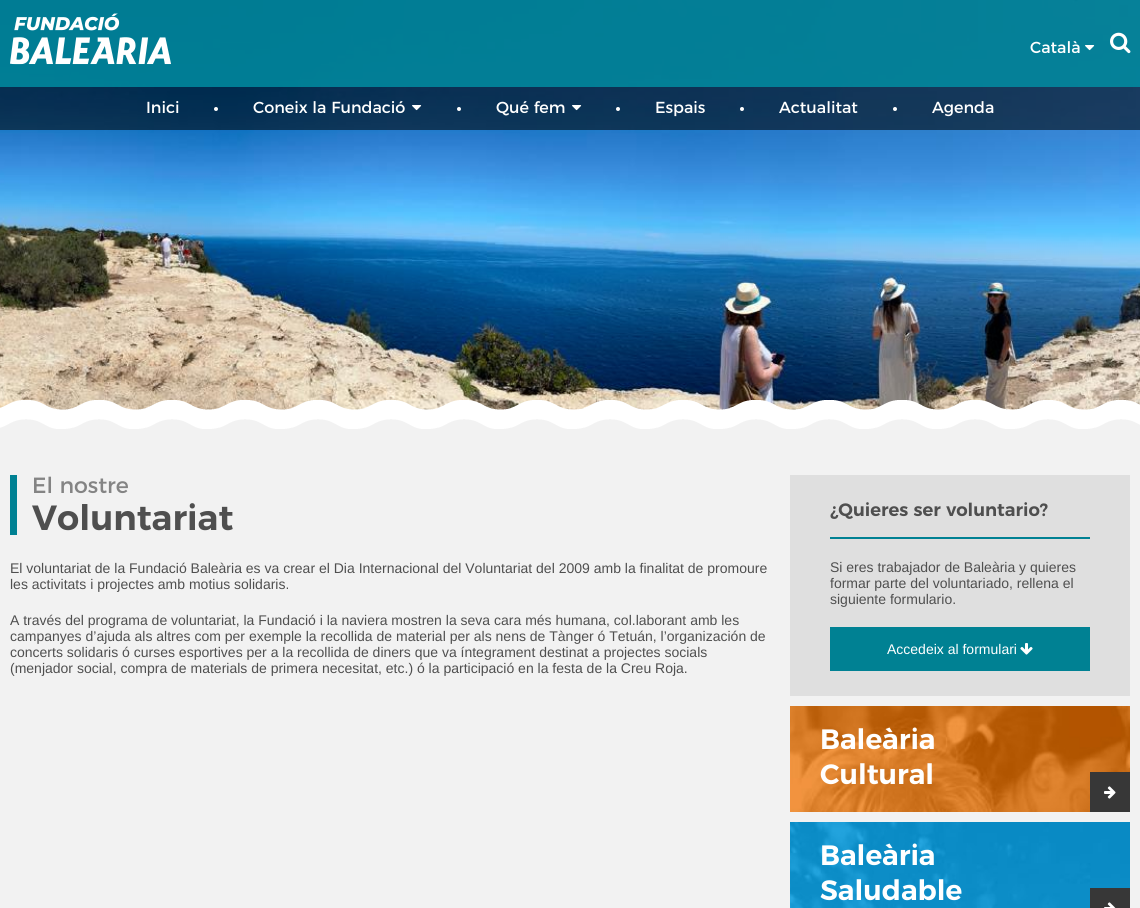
#include <cairo.h>
#include <math.h>
#include <stddef.h>

typedef struct { double x, y; const char *s; } line_t;

static void ink(cairo_t *ctx, unsigned color) {
    cairo_set_source_rgb(ctx, (color >> 16) / 255.0, (color >> 8 & 255) / 255.0, (color & 255) / 255.0);
}

static void paste(cairo_t *ctx, const char *path, double x, double y, double w, double h) {
    cairo_surface_t *image = cairo_image_surface_create_from_png(path);
    cairo_save(ctx);
    cairo_set_source_surface(ctx, image, x, y);
    cairo_rectangle(ctx, x, y, w, h);
    cairo_fill(ctx);
    cairo_restore(ctx);
    cairo_surface_destroy(image);
}

int main(void) {
    cairo_surface_t *surface = cairo_image_surface_create(CAIRO_FORMAT_RGB24, 1140, 908);
    cairo_t *ctx = cairo_create(surface);
    cairo_font_options_t *options = cairo_font_options_create();
    cairo_font_options_set_hint_metrics(options, CAIRO_HINT_METRICS_OFF);
    cairo_font_options_set_hint_style(options, CAIRO_HINT_STYLE_NONE);
    cairo_set_font_options(ctx, options);
    cairo_set_miter_limit(ctx, 4);
    ink(ctx, 0xF2F2F2);
    cairo_paint(ctx);
    paste(ctx, "media/1.png", 0, 0, 1140, 410);
    paste(ctx, "media/2.png", 0, 400, 1140, 29);
    cairo_set_source_rgba(ctx, 0, 0.506, 0.576, 0.9);
    cairo_rectangle(ctx, 0, 0, 1140, 87);
    cairo_fill(ctx);
    paste(ctx, "media/3.png", 10, 13, 161, 52);
    cairo_select_font_face(ctx, "Montserrat", CAIRO_FONT_SLANT_NORMAL, CAIRO_FONT_WEIGHT_NORMAL);
    cairo_set_font_size(ctx, 16);
    ink(ctx, 0xFFFFFF);
    cairo_move_to(ctx, 1030, 53);
    cairo_show_text(ctx, "Català");
    paste(ctx, "media/4.png", 1085, 45, 10, 6);
    paste(ctx, "media/5.png", 1110, 32, 21, 22);
    cairo_set_source_rgba(ctx, 0, 0, 0, 0.55);
    cairo_rectangle(ctx, 0, 87, 1140, 43);
    cairo_fill(ctx);
    ink(ctx, 0xFFFFFF);
    cairo_move_to(ctx, 146, 113);
    cairo_show_text(ctx, "Inici");
    cairo_new_path(ctx);
    cairo_arc(ctx, 216, 109, 2, 0, 2 * M_PI);
    cairo_fill(ctx);
    cairo_move_to(ctx, 253, 113);
    cairo_show_text(ctx, "Coneix la Fundació");
    paste(ctx, "media/6.png", 412, 105, 10, 6);
    cairo_arc(ctx, 459, 109, 2, 0, 2 * M_PI);
    cairo_fill(ctx);
    cairo_move_to(ctx, 496, 113);
    cairo_show_text(ctx, "Qué fem");
    paste(ctx, "media/7.png", 572, 105, 10, 6);
    cairo_arc(ctx, 618, 109, 2, 0, 2 * M_PI);
    cairo_fill(ctx);
    cairo_move_to(ctx, 655, 113);
    cairo_show_text(ctx, "Espais");
    cairo_new_path(ctx);
    cairo_arc(ctx, 742, 109, 2, 0, 2 * M_PI);
    cairo_fill(ctx);
    cairo_move_to(ctx, 779, 113);
    cairo_show_text(ctx, "Actualitat");
    cairo_new_path(ctx);
    cairo_arc(ctx, 895, 109, 2, 0, 2 * M_PI);
    cairo_fill(ctx);
    cairo_move_to(ctx, 932, 113);
    cairo_show_text(ctx, "Agenda");
    ink(ctx, 0x008193);
    cairo_rectangle(ctx, 10, 475, 7, 60);
    cairo_fill(ctx);
    cairo_set_font_size(ctx, 22);
    ink(ctx, 0x848484);
    cairo_move_to(ctx, 32, 493);
    cairo_show_text(ctx, "El nostre");
    cairo_select_font_face(ctx, "Montserrat SemiBold", CAIRO_FONT_SLANT_NORMAL, CAIRO_FONT_WEIGHT_NORMAL);
    cairo_set_font_size(ctx, 35);
    ink(ctx, 0x4F4F4F);
    cairo_move_to(ctx, 32, 530);
    cairo_show_text(ctx, "Voluntariat");
    cairo_select_font_face(ctx, "Liberation Sans", CAIRO_FONT_SLANT_NORMAL, CAIRO_FONT_WEIGHT_NORMAL);
    cairo_set_font_size(ctx, 14);
    {
        static const line_t items[] = {
            {10, 573, "El voluntariat de la Fundació Baleària es va crear el Dia Internacional del Voluntariat del 2009 amb la finalitat de promoure"},
            {10, 589, "les activitats i projectes amb motius solidaris."},
            {10, 625, "A través del programa de voluntariat, la Fundació i la naviera mostren la seva cara més humana, col.laborant amb les"},
            {10, 641, "campanyes d’ajuda als altres com per exemple la recollida de material per als nens de Tànger ó Tetuán, l’organización de"},
            {10, 657, "concerts solidaris ó curses esportives per a la recollida de diners que va íntegrament destinat a projectes socials"},
            {10, 673, "(menjador social, compra de materials de primera necesitat, etc.) ó la participació en la festa de la Creu Roja."},
        };
        for (size_t i = 0; i < sizeof items / sizeof *items; i++) {
            cairo_move_to(ctx, items[i].x, items[i].y);
            cairo_show_text(ctx, items[i].s);
        }
    }
    ink(ctx, 0xDFDFDF);
    cairo_rectangle(ctx, 790, 475, 340, 221);
    cairo_fill(ctx);
    ink(ctx, 0x008193);
    cairo_rectangle(ctx, 830, 537, 260, 2);
    cairo_fill(ctx);
    cairo_select_font_face(ctx, "Montserrat SemiBold", CAIRO_FONT_SLANT_NORMAL, CAIRO_FONT_WEIGHT_NORMAL);
    cairo_set_font_size(ctx, 18);
    ink(ctx, 0x4F4F4F);
    cairo_move_to(ctx, 830, 516);
    cairo_show_text(ctx, "¿Quieres ser voluntario?");
    cairo_select_font_face(ctx, "Liberation Sans", CAIRO_FONT_SLANT_NORMAL, CAIRO_FONT_WEIGHT_NORMAL);
    cairo_set_font_size(ctx, 14);
    {
        static const line_t items[] = {
            {830, 572, "Si eres trabajador de Baleària y quieres"},
            {830, 588, "formar parte del voluntariado, rellena el"},
            {830, 604, "siguiente formulario."},
        };
        for (size_t i = 0; i < sizeof items / sizeof *items; i++) {
            cairo_move_to(ctx, items[i].x, items[i].y);
            cairo_show_text(ctx, items[i].s);
        }
    }
    ink(ctx, 0x008193);
    cairo_rectangle(ctx, 830, 627, 260, 44);
    cairo_fill(ctx);
    ink(ctx, 0xFFFFFF);
    cairo_move_to(ctx, 887, 654);
    cairo_show_text(ctx, "Accedeix al formulari");
    paste(ctx, "media/8.png", 1020, 643, 13, 12);
    paste(ctx, "media/9.png", 790, 706, 340, 106);
    cairo_select_font_face(ctx, "Montserrat SemiBold", CAIRO_FONT_SLANT_NORMAL, CAIRO_FONT_WEIGHT_NORMAL);
    cairo_set_font_size(ctx, 28);
    cairo_move_to(ctx, 820, 749);
    cairo_show_text(ctx, "Baleària");
    cairo_move_to(ctx, 820, 784);
    cairo_show_text(ctx, "Cultural");
    ink(ctx, 0x373737);
    cairo_rectangle(ctx, 1090, 772, 40, 40);
    cairo_fill(ctx);
    paste(ctx, "media/10.png", 1104, 786, 12, 13);
    paste(ctx, "media/11.png", 790, 822, 340, 86);
    ink(ctx, 0xFFFFFF);
    cairo_move_to(ctx, 820, 865);
    cairo_show_text(ctx, "Baleària");
    cairo_move_to(ctx, 820, 900);
    cairo_show_text(ctx, "Saludable");
    ink(ctx, 0x373737);
    cairo_rectangle(ctx, 1090, 888, 40, 20);
    cairo_fill(ctx);
    paste(ctx, "media/12.png", 1104, 902, 12, 6);
    cairo_surface_write_to_png(surface, "image.png");
    cairo_font_options_destroy(options);
    cairo_destroy(ctx);
    cairo_surface_destroy(surface);
    return 0;
}
